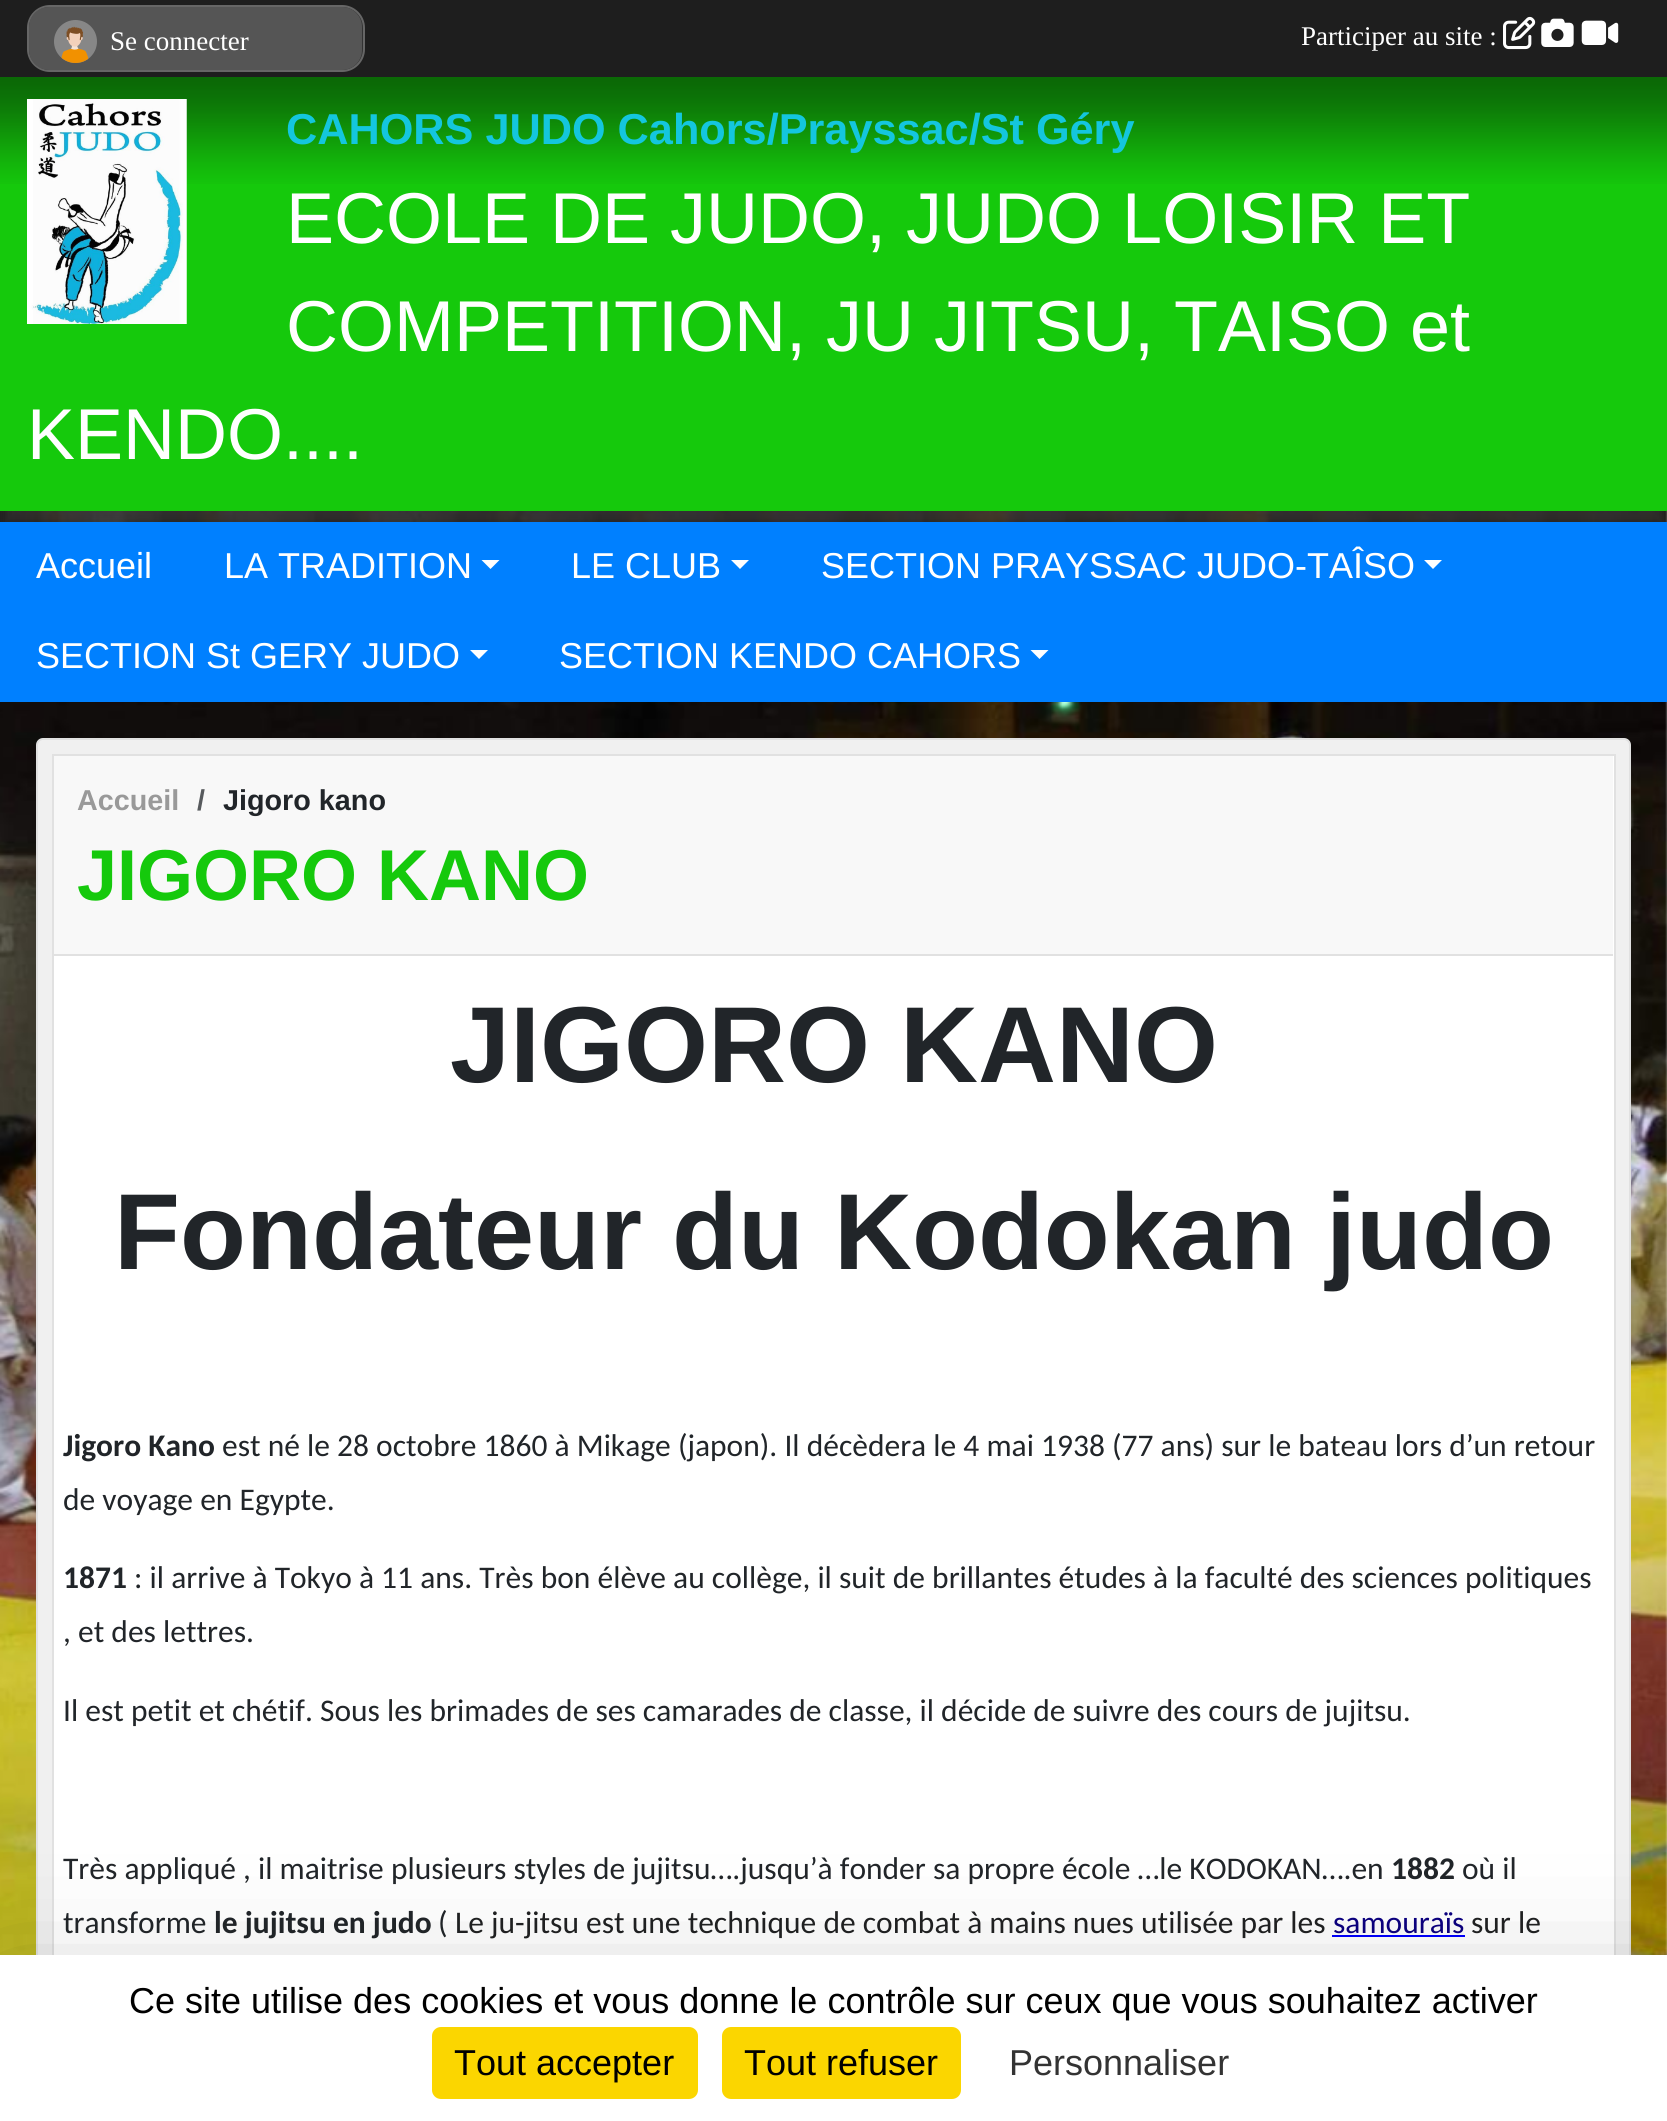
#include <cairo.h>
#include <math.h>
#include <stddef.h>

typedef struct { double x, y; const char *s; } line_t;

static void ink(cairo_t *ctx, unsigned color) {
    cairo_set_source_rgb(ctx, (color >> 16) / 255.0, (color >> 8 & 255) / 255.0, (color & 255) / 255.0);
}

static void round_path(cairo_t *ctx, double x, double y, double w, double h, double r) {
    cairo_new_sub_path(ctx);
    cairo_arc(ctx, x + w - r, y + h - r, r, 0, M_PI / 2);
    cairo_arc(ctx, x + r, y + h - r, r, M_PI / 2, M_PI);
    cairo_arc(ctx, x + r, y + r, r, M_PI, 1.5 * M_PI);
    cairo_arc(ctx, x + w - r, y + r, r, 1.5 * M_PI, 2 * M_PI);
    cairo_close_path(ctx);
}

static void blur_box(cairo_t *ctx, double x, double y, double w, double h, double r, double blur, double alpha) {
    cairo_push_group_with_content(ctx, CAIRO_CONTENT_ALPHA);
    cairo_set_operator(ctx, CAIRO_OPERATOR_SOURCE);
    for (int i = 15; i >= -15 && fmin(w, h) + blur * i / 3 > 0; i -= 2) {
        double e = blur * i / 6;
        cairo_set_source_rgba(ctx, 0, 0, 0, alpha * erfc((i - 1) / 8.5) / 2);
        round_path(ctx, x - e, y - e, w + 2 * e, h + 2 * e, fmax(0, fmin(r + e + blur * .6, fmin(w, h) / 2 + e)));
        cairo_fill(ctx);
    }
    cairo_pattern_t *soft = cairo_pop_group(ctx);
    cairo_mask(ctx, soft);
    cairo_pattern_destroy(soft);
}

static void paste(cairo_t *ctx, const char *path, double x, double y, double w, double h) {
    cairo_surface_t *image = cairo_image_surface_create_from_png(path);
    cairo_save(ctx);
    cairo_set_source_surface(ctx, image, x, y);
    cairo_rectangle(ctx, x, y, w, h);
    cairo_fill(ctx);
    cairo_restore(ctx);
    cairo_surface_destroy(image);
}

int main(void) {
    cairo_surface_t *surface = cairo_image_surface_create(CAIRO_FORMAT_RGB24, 1667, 2121);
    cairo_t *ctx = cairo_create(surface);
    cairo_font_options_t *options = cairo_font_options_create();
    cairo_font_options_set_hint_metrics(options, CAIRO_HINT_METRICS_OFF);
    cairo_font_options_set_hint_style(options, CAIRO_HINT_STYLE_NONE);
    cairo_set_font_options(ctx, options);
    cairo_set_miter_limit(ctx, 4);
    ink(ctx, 0xFFFFFF);
    cairo_paint(ctx);
    paste(ctx, "media/1.png", 0, 511, 1667, 1444);
    ink(ctx, 0x505050);
    blur_box(ctx, 0, 92, 1667, 435, 0, 5.5, 0.5);
    ink(ctx, 0x1E1E1E);
    cairo_rectangle(ctx, 0, 0, 1667, 77);
    cairo_fill(ctx);
    ink(ctx, 0x333333);
    round_path(ctx, 28, 6, 336, 65, 22);
    cairo_fill_preserve(ctx);
    ink(ctx, 0x666666);
    cairo_stroke(ctx);
    ink(ctx, 0x555555);
    round_path(ctx, 29, 7, 333, 63, 20);
    cairo_fill(ctx);
    paste(ctx, "media/2.png", 54, 20, 43, 43);
    cairo_select_font_face(ctx, "Liberation Serif", CAIRO_FONT_SLANT_NORMAL, CAIRO_FONT_WEIGHT_NORMAL);
    cairo_set_font_size(ctx, 27);
    ink(ctx, 0xFFFFFF);
    cairo_move_to(ctx, 110, 50);
    cairo_show_text(ctx, "Se connecter");
    cairo_move_to(ctx, 1301, 45);
    cairo_show_text(ctx, "Participer au site :");
    paste(ctx, "media/3.png", 1503, 16, 33, 34);
    paste(ctx, "media/4.png", 1541, 18, 33, 29);
    paste(ctx, "media/5.png", 1581, 20, 38, 25);
    ink(ctx, 0x15C90C);
    cairo_rectangle(ctx, 0, 77, 1667, 434);
    cairo_fill(ctx);
    paste(ctx, "media/6.png", 0, 77, 1667, 107);
    paste(ctx, "media/7.png", 27, 99, 160, 225);
    cairo_select_font_face(ctx, "Liberation Sans", CAIRO_FONT_SLANT_NORMAL, CAIRO_FONT_WEIGHT_BOLD);
    cairo_set_font_size(ctx, 43.25);
    ink(ctx, 0x14C6DE);
    cairo_move_to(ctx, 286, 144);
    cairo_show_text(ctx, "CAHORS JUDO Cahors/Prayssac/St Géry");
    cairo_select_font_face(ctx, "Liberation Sans", CAIRO_FONT_SLANT_NORMAL, CAIRO_FONT_WEIGHT_NORMAL);
    cairo_set_font_size(ctx, 72);
    ink(ctx, 0xFFFFFF);
    {
        static const line_t items[] = {
            {286, 243, "ECOLE DE JUDO, JUDO LOISIR ET"},
            {286, 351, "COMPETITION, JU JITSU, TAISO et"},
            {27, 459, "KENDO...."},
        };
        for (size_t i = 0; i < sizeof items / sizeof *items; i++) {
            cairo_move_to(ctx, items[i].x, items[i].y);
            cairo_show_text(ctx, items[i].s);
        }
    }
    ink(ctx, 0x0080FF);
    cairo_rectangle(ctx, 0, 522, 1667, 180);
    cairo_fill(ctx);
    cairo_set_font_size(ctx, 36);
    ink(ctx, 0xFFFFFF);
    cairo_move_to(ctx, 36, 578);
    cairo_show_text(ctx, "Accueil");
    cairo_move_to(ctx, 224, 578);
    cairo_show_text(ctx, "LA TRADITION");
    cairo_new_path(ctx);
    cairo_move_to(ctx, 481.5, 560);
    cairo_line_to(ctx, 499.5, 560);
    cairo_line_to(ctx, 490.5, 569);
    cairo_close_path(ctx);
    cairo_fill(ctx);
    cairo_move_to(ctx, 571, 578);
    cairo_show_text(ctx, "LE CLUB");
    cairo_new_path(ctx);
    cairo_move_to(ctx, 731, 560);
    cairo_line_to(ctx, 749, 560);
    cairo_line_to(ctx, 740, 569);
    cairo_close_path(ctx);
    cairo_fill(ctx);
    cairo_move_to(ctx, 821, 578);
    cairo_show_text(ctx, "SECTION PRAYSSAC JUDO-TAÎSO");
    cairo_new_path(ctx);
    cairo_move_to(ctx, 1424, 560);
    cairo_line_to(ctx, 1442, 560);
    cairo_line_to(ctx, 1433, 569);
    cairo_close_path(ctx);
    cairo_fill(ctx);
    cairo_move_to(ctx, 36, 668);
    cairo_show_text(ctx, "SECTION St GERY JUDO");
    cairo_new_path(ctx);
    cairo_move_to(ctx, 470, 650);
    cairo_line_to(ctx, 488, 650);
    cairo_line_to(ctx, 479, 659);
    cairo_close_path(ctx);
    cairo_fill(ctx);
    cairo_move_to(ctx, 559, 668);
    cairo_show_text(ctx, "SECTION KENDO CAHORS");
    cairo_new_path(ctx);
    cairo_move_to(ctx, 1030.5, 650);
    cairo_line_to(ctx, 1048.5, 650);
    cairo_line_to(ctx, 1039.5, 659);
    cairo_close_path(ctx);
    cairo_fill(ctx);
    ink(ctx, 0xF0F0F0);
    round_path(ctx, 37, 739, 1593, 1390, 6);
    cairo_fill_preserve(ctx);
    ink(ctx, 0xE1E1E1);
    cairo_stroke(ctx);
    ink(ctx, 0xFFFFFF);
    cairo_rectangle(ctx, 54, 756, 1560, 1199);
    cairo_fill(ctx);
    cairo_rectangle(ctx, 53, 755, 1562, 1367);
    ink(ctx, 0xE1E1E1);
    cairo_stroke(ctx);
    ink(ctx, 0xF8F8F8);
    cairo_rectangle(ctx, 54, 756, 1559, 198);
    cairo_fill(ctx);
    ink(ctx, 0xE1E1E1);
    cairo_rectangle(ctx, 54, 954, 1559, 2);
    cairo_fill(ctx);
    cairo_select_font_face(ctx, "Liberation Sans", CAIRO_FONT_SLANT_NORMAL, CAIRO_FONT_WEIGHT_BOLD);
    cairo_set_font_size(ctx, 28.75);
    ink(ctx, 0x999999);
    cairo_move_to(ctx, 77, 810);
    cairo_show_text(ctx, "Accueil");
    ink(ctx, 0x575A5D);
    cairo_move_to(ctx, 197, 810);
    cairo_show_text(ctx, "/");
    ink(ctx, 0x212529);
    cairo_move_to(ctx, 223, 810);
    cairo_show_text(ctx, "Jigoro kano");
    cairo_set_font_size(ctx, 72);
    ink(ctx, 0x15C90C);
    cairo_move_to(ctx, 77, 900);
    cairo_show_text(ctx, "JIGORO KANO");
    cairo_set_font_size(ctx, 108);
    ink(ctx, 0x212529);
    cairo_move_to(ctx, 450, 1082);
    cairo_show_text(ctx, "JIGORO KANO");
    cairo_move_to(ctx, 114, 1269);
    cairo_show_text(ctx, "Fondateur du Kodokan judo");
    cairo_select_font_face(ctx, "Carlito", CAIRO_FONT_SLANT_NORMAL, CAIRO_FONT_WEIGHT_BOLD);
    cairo_set_font_size(ctx, 31.5);
    cairo_move_to(ctx, 63, 1456);
    cairo_show_text(ctx, "Jigoro Kano");
    cairo_select_font_face(ctx, "Carlito", CAIRO_FONT_SLANT_NORMAL, CAIRO_FONT_WEIGHT_NORMAL);
    cairo_move_to(ctx, 222, 1456);
    cairo_show_text(ctx, "est né le 28 octobre 1860 à Mikage (japon). Il décèdera le 4 mai 1938 (77 ans) sur le bateau lors d’un retour");
    cairo_move_to(ctx, 63, 1510);
    cairo_show_text(ctx, "de voyage en Egypte.");
    cairo_select_font_face(ctx, "Carlito", CAIRO_FONT_SLANT_NORMAL, CAIRO_FONT_WEIGHT_BOLD);
    cairo_move_to(ctx, 63, 1588);
    cairo_show_text(ctx, "1871");
    cairo_select_font_face(ctx, "Carlito", CAIRO_FONT_SLANT_NORMAL, CAIRO_FONT_WEIGHT_NORMAL);
    {
        static const line_t items[] = {
            {134, 1588, ": il arrive à Tokyo à 11 ans. Très bon élève au collège, il suit de brillantes études à la faculté des sciences politiques"},
            {63, 1642, ", et des lettres."},
            {63, 1721, "Il est petit et chétif. Sous les brimades de ses camarades de classe, il décide de suivre des cours de jujitsu."},
            {63, 1879, "Très appliqué , il maitrise plusieurs styles de jujitsu….jusqu’à fonder sa propre école …le KODOKAN….en"},
        };
        for (size_t i = 0; i < sizeof items / sizeof *items; i++) {
            cairo_move_to(ctx, items[i].x, items[i].y);
            cairo_show_text(ctx, items[i].s);
        }
    }
    cairo_select_font_face(ctx, "Carlito", CAIRO_FONT_SLANT_NORMAL, CAIRO_FONT_WEIGHT_BOLD);
    cairo_move_to(ctx, 1391, 1879);
    cairo_show_text(ctx, "1882");
    cairo_select_font_face(ctx, "Carlito", CAIRO_FONT_SLANT_NORMAL, CAIRO_FONT_WEIGHT_NORMAL);
    cairo_move_to(ctx, 1462, 1879);
    cairo_show_text(ctx, "où il");
    cairo_move_to(ctx, 63, 1933);
    cairo_show_text(ctx, "transforme");
    cairo_select_font_face(ctx, "Carlito", CAIRO_FONT_SLANT_NORMAL, CAIRO_FONT_WEIGHT_BOLD);
    cairo_move_to(ctx, 214, 1933);
    cairo_show_text(ctx, "le jujitsu en judo");
    cairo_select_font_face(ctx, "Carlito", CAIRO_FONT_SLANT_NORMAL, CAIRO_FONT_WEIGHT_NORMAL);
    cairo_move_to(ctx, 438, 1933);
    cairo_show_text(ctx, "(");
    ink(ctx, 0x202122);
    cairo_move_to(ctx, 455, 1933);
    cairo_show_text(ctx, "Le ju-jitsu est une technique de combat à mains nues utilisée par les");
    ink(ctx, 0x0B0080);
    cairo_move_to(ctx, 1333, 1933);
    cairo_show_text(ctx, "samouraïs");
    ink(ctx, 0x0000FF);
    cairo_rectangle(ctx, 1332, 1935, 133, 2);
    cairo_fill(ctx);
    ink(ctx, 0x202122);
    cairo_move_to(ctx, 1471, 1933);
    cairo_show_text(ctx, "sur le");
    ink(ctx, 0x000000);
    blur_box(ctx, 0, 2000, 1667, 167, 0, 67.5, 0.25);
    ink(ctx, 0xFFFFFF);
    cairo_rectangle(ctx, 0, 1955, 1667, 166);
    cairo_fill(ctx);
    cairo_select_font_face(ctx, "Liberation Sans", CAIRO_FONT_SLANT_NORMAL, CAIRO_FONT_WEIGHT_NORMAL);
    cairo_set_font_size(ctx, 36);
    ink(ctx, 0x000000);
    cairo_move_to(ctx, 129, 2013);
    cairo_show_text(ctx, "Ce site utilise des cookies et vous donne le contrôle sur ceux que vous souhaitez activer");
    ink(ctx, 0xFBD600);
    round_path(ctx, 432, 2027, 266, 72, 9);
    cairo_fill(ctx);
    ink(ctx, 0x000000);
    cairo_move_to(ctx, 454, 2075);
    cairo_show_text(ctx, "Tout accepter");
    ink(ctx, 0xFBD600);
    round_path(ctx, 722, 2027, 239, 72, 9);
    cairo_fill(ctx);
    ink(ctx, 0x000000);
    cairo_move_to(ctx, 744, 2075);
    cairo_show_text(ctx, "Tout refuser");
    ink(ctx, 0x333333);
    cairo_move_to(ctx, 1009, 2075);
    cairo_show_text(ctx, "Personnaliser");
    cairo_surface_write_to_png(surface, "image.png");
    cairo_font_options_destroy(options);
    cairo_destroy(ctx);
    cairo_surface_destroy(surface);
    return 0;
}
